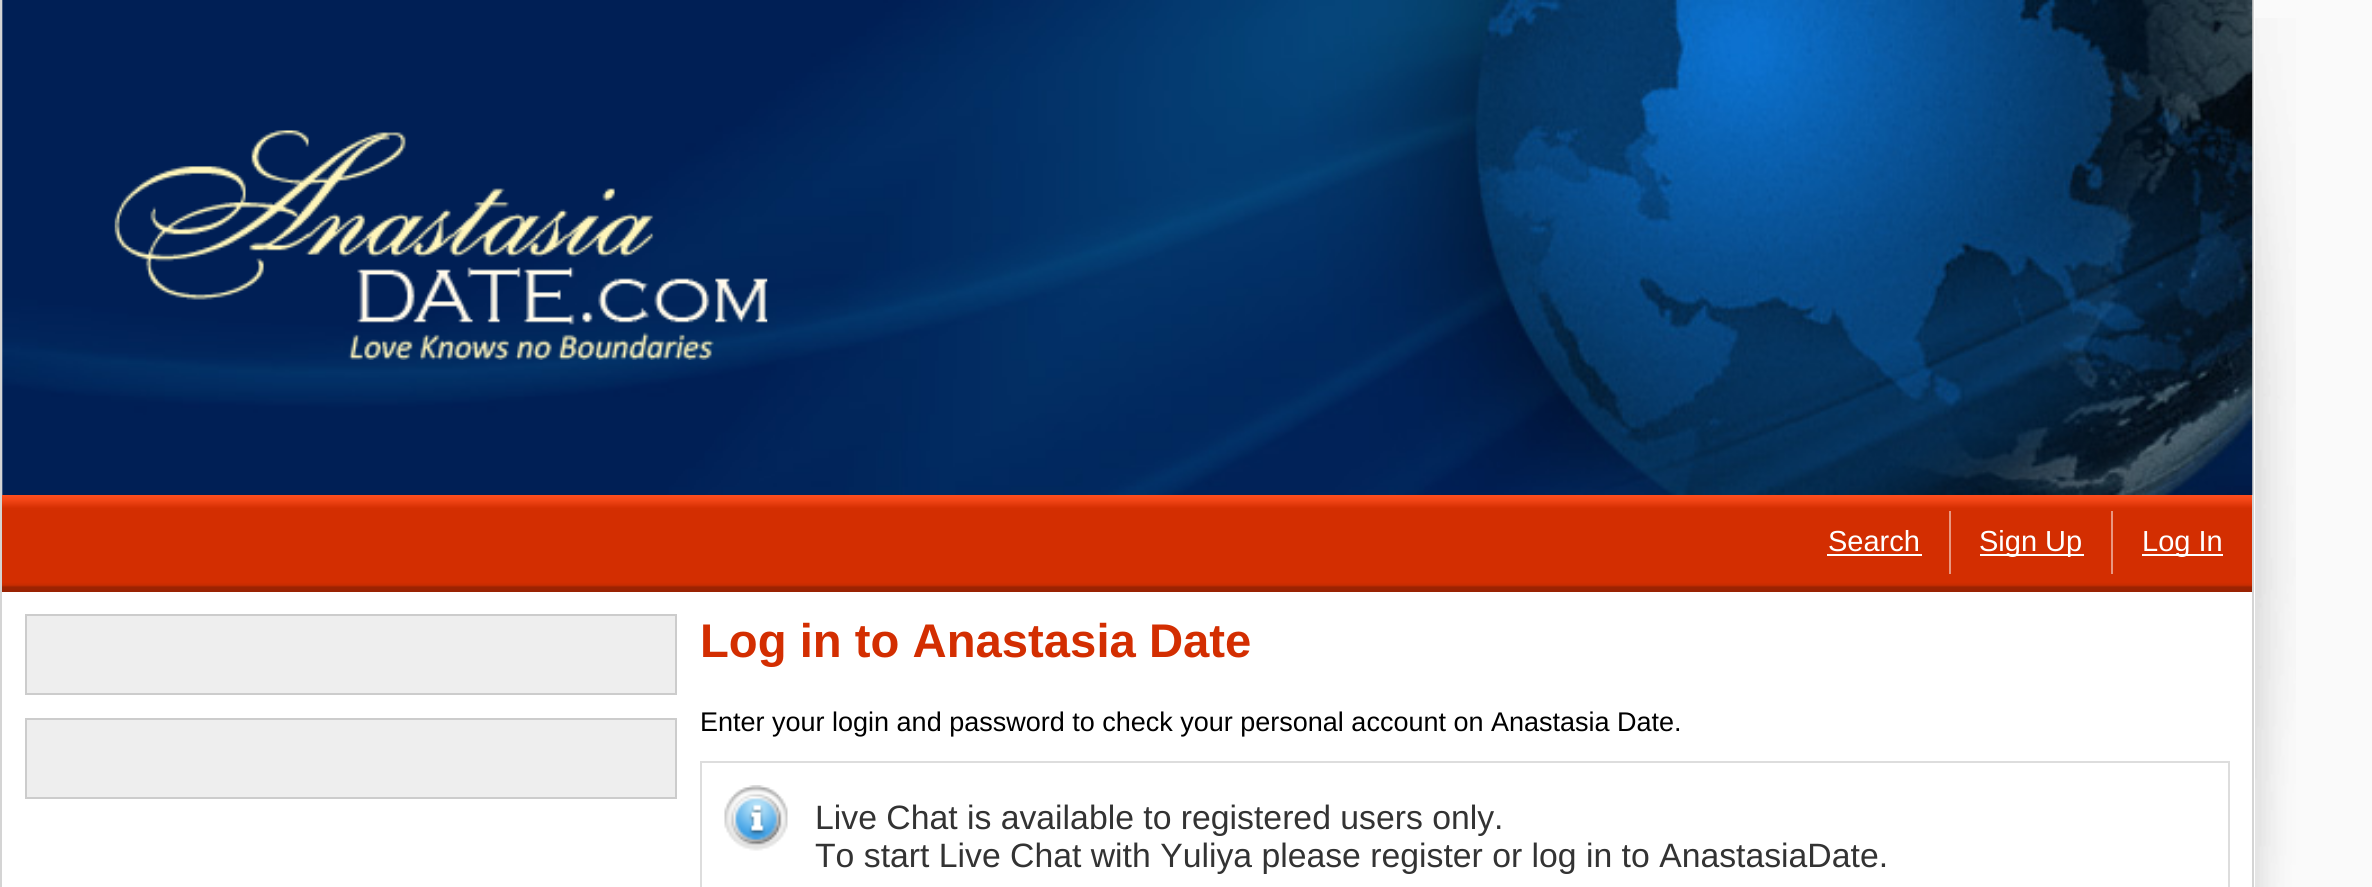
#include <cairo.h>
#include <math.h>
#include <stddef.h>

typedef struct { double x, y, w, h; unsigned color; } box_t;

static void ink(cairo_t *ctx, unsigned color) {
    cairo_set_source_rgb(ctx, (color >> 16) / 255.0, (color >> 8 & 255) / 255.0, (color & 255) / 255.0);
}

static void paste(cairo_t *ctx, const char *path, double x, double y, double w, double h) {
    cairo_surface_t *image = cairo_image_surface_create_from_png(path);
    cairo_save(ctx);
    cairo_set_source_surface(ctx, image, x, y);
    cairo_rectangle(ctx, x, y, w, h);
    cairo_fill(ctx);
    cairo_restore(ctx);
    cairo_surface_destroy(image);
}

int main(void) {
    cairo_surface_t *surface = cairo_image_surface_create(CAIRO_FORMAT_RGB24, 2372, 887);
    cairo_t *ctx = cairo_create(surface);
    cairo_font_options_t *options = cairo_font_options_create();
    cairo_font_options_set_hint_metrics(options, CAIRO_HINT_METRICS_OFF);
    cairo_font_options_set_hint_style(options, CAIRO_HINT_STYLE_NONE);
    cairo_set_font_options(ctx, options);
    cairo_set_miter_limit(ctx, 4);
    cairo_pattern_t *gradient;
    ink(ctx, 0xFAFAFA);
    cairo_paint(ctx);
    {
        static const box_t items[] = {
            {2, 0, 2253, 887, 0xFFFFFF},
            {2252, 0, 2, 887, 0xD4D4D4},
            {0, 0, 2, 887, 0xD4D4D4},
        };
        for (size_t i = 0; i < sizeof items / sizeof *items; i++) {
            ink(ctx, items[i].color);
            cairo_rectangle(ctx, items[i].x, items[i].y, items[i].w, items[i].h);
            cairo_fill(ctx);
        }
    }
    paste(ctx, "media/1.png", 2, 0, 2251, 495);
    paste(ctx, "media/2.png", 114, 130, 654, 230);
    gradient = cairo_pattern_create_linear(1127, 495, 1127, 592);
    cairo_pattern_add_color_stop_rgba(gradient, 0, 1, 0.31, 0.122, 1);
    cairo_pattern_add_color_stop_rgba(gradient, 0.05, 0.953, 0.275, 0.09, 1);
    cairo_pattern_add_color_stop_rgba(gradient, 0.12, 0.855, 0.2, 0.024, 1);
    cairo_pattern_add_color_stop_rgba(gradient, 0.14, 0.831, 0.184, 0.008, 1);
    cairo_pattern_add_color_stop_rgba(gradient, 0.17, 0.827, 0.18, 0.004, 1);
    cairo_pattern_add_color_stop_rgba(gradient, 0.9, 0.827, 0.18, 0.004, 1);
    cairo_pattern_add_color_stop_rgba(gradient, 0.93, 0.78, 0.173, 0.004, 1);
    cairo_pattern_add_color_stop_rgba(gradient, 0.95, 0.612, 0.137, 0.008, 1);
    cairo_pattern_add_color_stop_rgba(gradient, 1, 0.6, 0.133, 0.008, 1);
    cairo_set_source(ctx, gradient);
    cairo_pattern_destroy(gradient);
    cairo_rectangle(ctx, 2, 495, 2250, 97);
    cairo_fill(ctx);
    cairo_select_font_face(ctx, "Liberation Sans", CAIRO_FONT_SLANT_NORMAL, CAIRO_FONT_WEIGHT_NORMAL);
    cairo_set_font_size(ctx, 29);
    ink(ctx, 0xFFFFFF);
    cairo_move_to(ctx, 1828, 551);
    cairo_show_text(ctx, "Search");
    {
        static const box_t items[] = {
            {1827, 554, 95, 2, 0xFFFFFF},
            {1949, 511, 2, 63, 0xE99780},
            {1980, 554, 104, 2, 0xFFFFFF},
        };
        for (size_t i = 0; i < sizeof items / sizeof *items; i++) {
            ink(ctx, items[i].color);
            cairo_rectangle(ctx, items[i].x, items[i].y, items[i].w, items[i].h);
            cairo_fill(ctx);
        }
    }
    cairo_move_to(ctx, 1979, 551);
    cairo_show_text(ctx, "Sign Up");
    ink(ctx, 0xE99780);
    cairo_rectangle(ctx, 2111, 511, 2, 63);
    cairo_fill(ctx);
    ink(ctx, 0xFFFFFF);
    cairo_rectangle(ctx, 2142, 554, 81, 2);
    cairo_fill(ctx);
    cairo_move_to(ctx, 2142, 551);
    cairo_show_text(ctx, "Log In");
    ink(ctx, 0xEEEEEE);
    cairo_rectangle(ctx, 26, 615, 650, 79);
    cairo_fill_preserve(ctx);
    ink(ctx, 0xCCCCCC);
    cairo_stroke(ctx);
    ink(ctx, 0xEEEEEE);
    cairo_rectangle(ctx, 26, 719, 650, 79);
    cairo_fill_preserve(ctx);
    ink(ctx, 0xCCCCCC);
    cairo_stroke(ctx);
    cairo_select_font_face(ctx, "Liberation Sans", CAIRO_FONT_SLANT_NORMAL, CAIRO_FONT_WEIGHT_BOLD);
    cairo_set_font_size(ctx, 47.25);
    ink(ctx, 0xD32E01);
    cairo_move_to(ctx, 700, 657);
    cairo_show_text(ctx, "Log in to Anastasia Date");
    cairo_select_font_face(ctx, "Liberation Sans", CAIRO_FONT_SLANT_NORMAL, CAIRO_FONT_WEIGHT_NORMAL);
    cairo_set_font_size(ctx, 27);
    ink(ctx, 0x000000);
    cairo_move_to(ctx, 700, 731);
    cairo_show_text(ctx, "Enter your login and password to check your personal account on Anastasia Date.");
    paste(ctx, "media/3.png", 724, 785, 64, 66);
    cairo_rectangle(ctx, 701, 762, 1528, 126);
    ink(ctx, 0xDDDDDD);
    cairo_stroke(ctx);
    cairo_set_font_size(ctx, 33.75);
    ink(ctx, 0x333333);
    cairo_move_to(ctx, 815, 829);
    cairo_show_text(ctx, "Live Chat is available to registered users only.");
    cairo_move_to(ctx, 815, 867);
    cairo_show_text(ctx, "To start Live Chat with Yuliya please register or log in to AnastasiaDate.");
    paste(ctx, "media/4.png", 2255, 18, 41, 869);
    cairo_surface_write_to_png(surface, "image.png");
    cairo_font_options_destroy(options);
    cairo_destroy(ctx);
    cairo_surface_destroy(surface);
    return 0;
}
